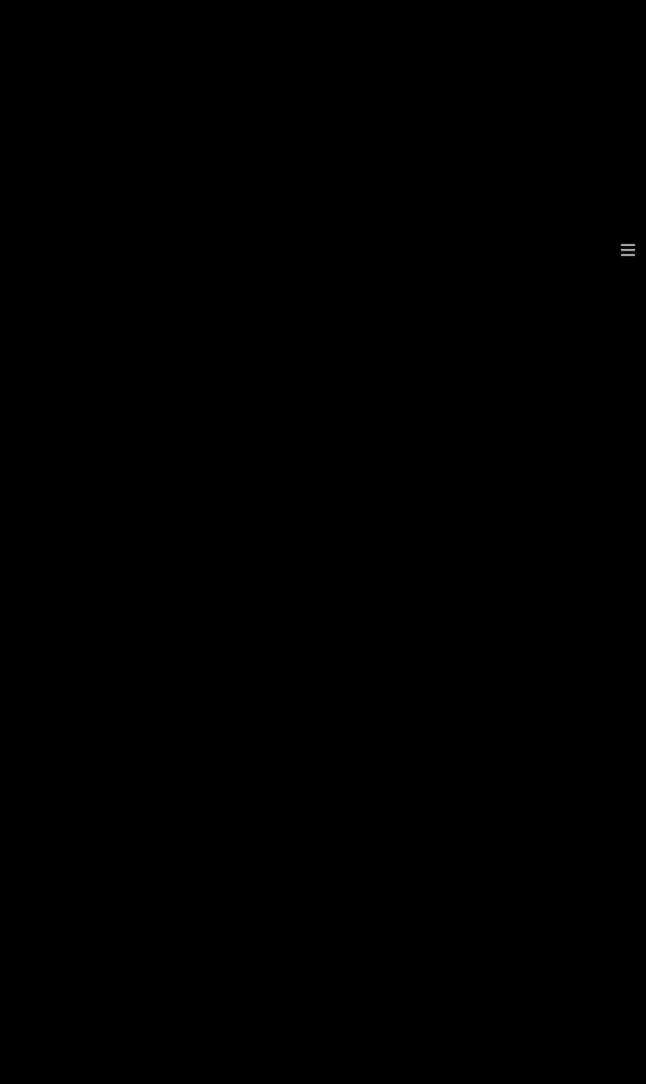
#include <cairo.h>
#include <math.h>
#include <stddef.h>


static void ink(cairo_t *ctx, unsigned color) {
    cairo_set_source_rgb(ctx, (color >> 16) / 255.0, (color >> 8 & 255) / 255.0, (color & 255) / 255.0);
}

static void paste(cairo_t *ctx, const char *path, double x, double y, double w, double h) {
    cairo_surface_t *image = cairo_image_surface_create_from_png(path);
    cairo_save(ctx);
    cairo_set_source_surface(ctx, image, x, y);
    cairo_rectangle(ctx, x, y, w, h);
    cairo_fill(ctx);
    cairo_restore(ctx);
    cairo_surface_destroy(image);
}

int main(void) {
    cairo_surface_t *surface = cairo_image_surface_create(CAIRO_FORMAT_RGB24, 646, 1084);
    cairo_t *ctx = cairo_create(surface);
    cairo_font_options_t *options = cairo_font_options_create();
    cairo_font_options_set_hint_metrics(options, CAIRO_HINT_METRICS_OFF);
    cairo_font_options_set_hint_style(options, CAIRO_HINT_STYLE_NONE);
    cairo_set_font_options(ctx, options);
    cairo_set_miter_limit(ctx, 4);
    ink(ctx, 0x000000);
    cairo_paint(ctx);
    paste(ctx, "media/1.png", 621, 243, 14, 14);
    cairo_surface_write_to_png(surface, "image.png");
    cairo_font_options_destroy(options);
    cairo_destroy(ctx);
    cairo_surface_destroy(surface);
    return 0;
}
